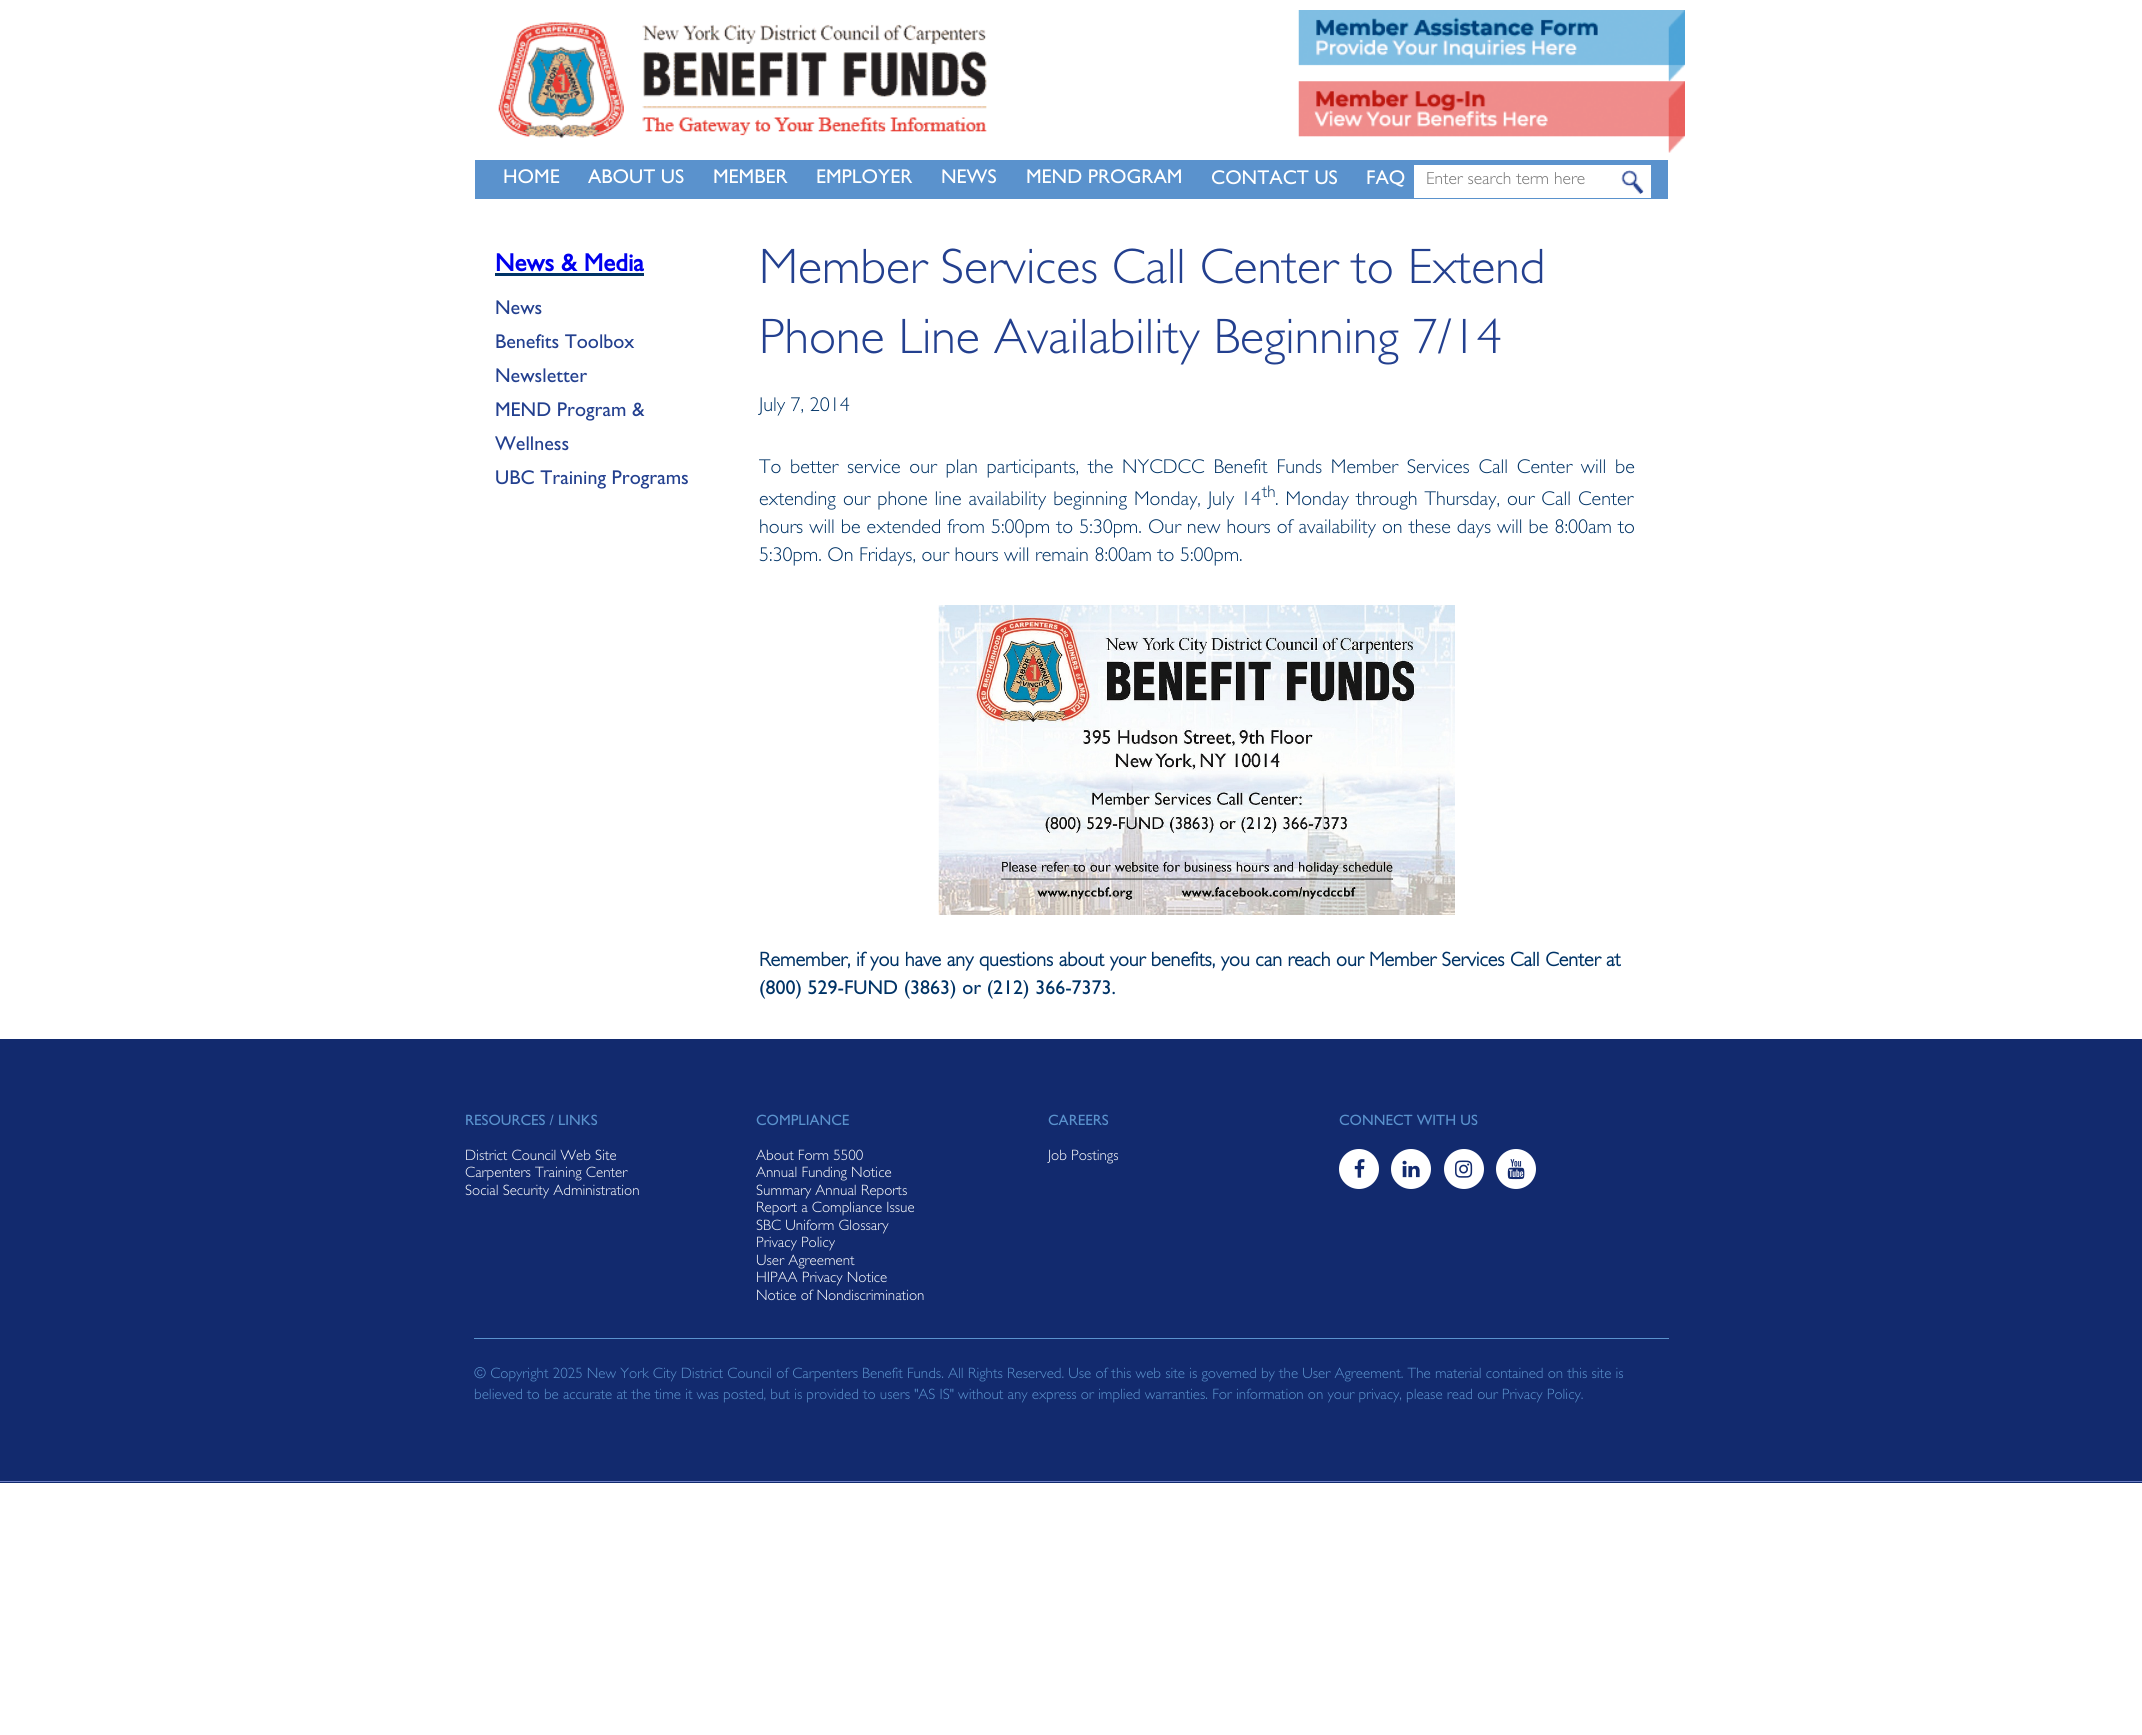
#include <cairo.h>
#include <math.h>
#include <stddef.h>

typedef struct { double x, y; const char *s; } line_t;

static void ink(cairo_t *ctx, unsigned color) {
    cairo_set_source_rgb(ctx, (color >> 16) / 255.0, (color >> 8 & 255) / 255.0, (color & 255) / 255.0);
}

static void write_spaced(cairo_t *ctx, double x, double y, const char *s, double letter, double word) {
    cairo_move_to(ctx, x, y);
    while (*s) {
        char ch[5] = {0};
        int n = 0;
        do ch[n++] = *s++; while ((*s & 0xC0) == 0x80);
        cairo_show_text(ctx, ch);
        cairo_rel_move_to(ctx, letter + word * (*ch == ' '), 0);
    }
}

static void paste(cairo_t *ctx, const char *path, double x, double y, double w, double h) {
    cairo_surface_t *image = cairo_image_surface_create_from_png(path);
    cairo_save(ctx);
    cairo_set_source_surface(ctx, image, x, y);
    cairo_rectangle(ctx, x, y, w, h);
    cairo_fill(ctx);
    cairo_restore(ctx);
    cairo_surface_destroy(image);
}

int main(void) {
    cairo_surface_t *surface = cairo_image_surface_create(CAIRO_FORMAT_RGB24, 2142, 1735);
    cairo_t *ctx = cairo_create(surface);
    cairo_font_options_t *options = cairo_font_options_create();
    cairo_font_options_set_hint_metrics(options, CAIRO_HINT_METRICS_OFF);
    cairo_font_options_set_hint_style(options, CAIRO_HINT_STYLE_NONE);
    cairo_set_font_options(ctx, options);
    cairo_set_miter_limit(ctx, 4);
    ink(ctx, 0xFFFFFF);
    cairo_paint(ctx);
    paste(ctx, "media/1.png", 498, 22, 489, 117);
    paste(ctx, "media/2.png", 1298, 10, 387, 72);
    paste(ctx, "media/3.png", 1298, 81, 387, 72);
    ink(ctx, 0x5A92CD);
    cairo_rectangle(ctx, 475, 160, 1193, 39);
    cairo_fill(ctx);
    cairo_select_font_face(ctx, "Gill Sans", CAIRO_FONT_SLANT_NORMAL, CAIRO_FONT_WEIGHT_NORMAL);
    cairo_set_font_size(ctx, 20);
    ink(ctx, 0xFFFFFF);
    {
        static const line_t items[] = {
            {503, 183, "HOME"},
            {588, 183, "ABOUT US"},
            {713, 183, "MEMBER"},
            {816, 183, "EMPLOYER"},
            {941, 183, "NEWS"},
            {1026, 183, "MEND PROGRAM"},
            {1211, 184, "CONTACT US"},
            {1366, 184, "FAQ"},
        };
        for (size_t i = 0; i < sizeof items / sizeof *items; i++) {
            cairo_move_to(ctx, items[i].x, items[i].y);
            cairo_show_text(ctx, items[i].s);
        }
    }
    cairo_rectangle(ctx, 1414, 165, 237, 33);
    cairo_fill(ctx);
    cairo_select_font_face(ctx, "Gill Sans Light", CAIRO_FONT_SLANT_NORMAL, CAIRO_FONT_WEIGHT_NORMAL);
    cairo_set_font_size(ctx, 17.5);
    ink(ctx, 0x757575);
    cairo_move_to(ctx, 1426, 184);
    cairo_show_text(ctx, "Enter search term here");
    paste(ctx, "media/4.png", 1621, 170, 23, 24);
    cairo_select_font_face(ctx, "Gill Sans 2", CAIRO_FONT_SLANT_NORMAL, CAIRO_FONT_WEIGHT_BOLD);
    cairo_set_font_size(ctx, 25);
    ink(ctx, 0x0000EE);
    cairo_move_to(ctx, 495, 271);
    cairo_show_text(ctx, "News & Media");
    ink(ctx, 0x003366);
    cairo_rectangle(ctx, 495, 273, 149, 3);
    cairo_fill(ctx);
    cairo_select_font_face(ctx, "Gill Sans", CAIRO_FONT_SLANT_NORMAL, CAIRO_FONT_WEIGHT_NORMAL);
    cairo_set_font_size(ctx, 20);
    ink(ctx, 0x23408F);
    {
        static const line_t items[] = {
            {495, 314, "News"},
            {495, 348, "Benefits Toolbox"},
            {495, 382, "Newsletter"},
            {495, 416, "MEND Program &"},
            {495, 450, "Wellness"},
            {495, 484, "UBC Training Programs"},
        };
        for (size_t i = 0; i < sizeof items / sizeof *items; i++) {
            cairo_move_to(ctx, items[i].x, items[i].y);
            cairo_show_text(ctx, items[i].s);
        }
    }
    cairo_select_font_face(ctx, "Gill Sans Light", CAIRO_FONT_SLANT_NORMAL, CAIRO_FONT_WEIGHT_NORMAL);
    cairo_set_font_size(ctx, 50);
    cairo_move_to(ctx, 759, 283);
    cairo_show_text(ctx, "Member Services Call Center to Extend");
    cairo_move_to(ctx, 759, 353);
    cairo_show_text(ctx, "Phone Line Availability Beginning 7/14");
    cairo_set_font_size(ctx, 20);
    ink(ctx, 0x003366);
    cairo_move_to(ctx, 759, 411);
    cairo_show_text(ctx, "July 7, 2014");
    write_spaced(ctx, 759, 473, "To better service our plan participants, the NYCDCC Benefit Funds Member Services Call Center will be", 0, 3.25);
    write_spaced(ctx, 759, 505, "extending our phone line availability beginning Monday, July 14", 0, 1.5);
    cairo_set_font_size(ctx, 17);
    cairo_move_to(ctx, 1262, 497);
    cairo_show_text(ctx, "th");
    cairo_set_font_size(ctx, 20);
    write_spaced(ctx, 1275, 505, ". Monday through Thursday, our Call Center", 0, 1.5);
    write_spaced(ctx, 759, 533, "hours will be extended from 5:00pm to 5:30pm. Our new hours of availability on these days will be 8:00am to", 0, 0.5);
    cairo_move_to(ctx, 759, 561);
    cairo_show_text(ctx, "5:30pm. On Fridays, our hours will remain 8:00am to 5:00pm.");
    paste(ctx, "media/5.png", 938, 605, 517, 310);
    cairo_select_font_face(ctx, "Gill Sans", CAIRO_FONT_SLANT_NORMAL, CAIRO_FONT_WEIGHT_BOLD);
    cairo_move_to(ctx, 759, 966);
    cairo_show_text(ctx, "Remember, if you have any questions about your benefits, you can reach our Member Services Call Center at");
    cairo_select_font_face(ctx, "Gill Sans", CAIRO_FONT_SLANT_NORMAL, CAIRO_FONT_WEIGHT_NORMAL);
    cairo_move_to(ctx, 759, 994);
    cairo_show_text(ctx, "(800) 529-FUND (3863) or (212) 366-7373.");
    ink(ctx, 0x122A6E);
    cairo_rectangle(ctx, 0, 1039, 2142, 444);
    cairo_fill(ctx);
    ink(ctx, 0x6E80C5);
    cairo_rectangle(ctx, 0, 1481, 2142, 1);
    cairo_fill(ctx);
    cairo_set_font_size(ctx, 15);
    ink(ctx, 0x5A92CD);
    cairo_move_to(ctx, 465, 1125);
    cairo_show_text(ctx, "RESOURCES / LINKS");
    cairo_select_font_face(ctx, "Gill Sans Light", CAIRO_FONT_SLANT_NORMAL, CAIRO_FONT_WEIGHT_NORMAL);
    ink(ctx, 0xFFFFFF);
    {
        static const line_t items[] = {
            {465, 1160, "District Council Web Site"},
            {465, 1177, "Carpenters Training Center"},
            {465, 1195, "Social Security Administration"},
        };
        for (size_t i = 0; i < sizeof items / sizeof *items; i++) {
            cairo_move_to(ctx, items[i].x, items[i].y);
            cairo_show_text(ctx, items[i].s);
        }
    }
    cairo_select_font_face(ctx, "Gill Sans", CAIRO_FONT_SLANT_NORMAL, CAIRO_FONT_WEIGHT_NORMAL);
    ink(ctx, 0x5A92CD);
    cairo_move_to(ctx, 756, 1125);
    cairo_show_text(ctx, "COMPLIANCE");
    cairo_select_font_face(ctx, "Gill Sans Light", CAIRO_FONT_SLANT_NORMAL, CAIRO_FONT_WEIGHT_NORMAL);
    ink(ctx, 0xFFFFFF);
    {
        static const line_t items[] = {
            {756, 1160, "About Form 5500"},
            {756, 1177, "Annual Funding Notice"},
            {756, 1195, "Summary Annual Reports"},
            {756, 1212, "Report a Compliance Issue"},
            {756, 1230, "SBC Uniform Glossary"},
            {756, 1247, "Privacy Policy"},
            {756, 1265, "User Agreement"},
            {756, 1282, "HIPAA Privacy Notice"},
            {756, 1300, "Notice of Nondiscrimination"},
        };
        for (size_t i = 0; i < sizeof items / sizeof *items; i++) {
            cairo_move_to(ctx, items[i].x, items[i].y);
            cairo_show_text(ctx, items[i].s);
        }
    }
    cairo_select_font_face(ctx, "Gill Sans", CAIRO_FONT_SLANT_NORMAL, CAIRO_FONT_WEIGHT_NORMAL);
    ink(ctx, 0x5A92CD);
    cairo_move_to(ctx, 1048, 1125);
    cairo_show_text(ctx, "CAREERS");
    cairo_select_font_face(ctx, "Gill Sans Light", CAIRO_FONT_SLANT_NORMAL, CAIRO_FONT_WEIGHT_NORMAL);
    ink(ctx, 0xFFFFFF);
    cairo_move_to(ctx, 1048, 1160);
    cairo_show_text(ctx, "Job Postings");
    cairo_select_font_face(ctx, "Gill Sans", CAIRO_FONT_SLANT_NORMAL, CAIRO_FONT_WEIGHT_NORMAL);
    ink(ctx, 0x5A92CD);
    cairo_move_to(ctx, 1339, 1125);
    cairo_show_text(ctx, "CONNECT WITH US");
    ink(ctx, 0xFFFFFF);
    cairo_new_path(ctx);
    cairo_arc(ctx, 1359, 1169, 20, 0, 2 * M_PI);
    cairo_fill(ctx);
    paste(ctx, "media/6.png", 1354, 1159, 11, 19);
    cairo_arc(ctx, 1411, 1169, 20, 0, 2 * M_PI);
    cairo_fill(ctx);
    paste(ctx, "media/7.png", 1402, 1160, 18, 18);
    cairo_arc(ctx, 1464, 1169, 20, 0, 2 * M_PI);
    cairo_fill(ctx);
    paste(ctx, "media/8.png", 1455, 1160, 18, 18);
    cairo_arc(ctx, 1516, 1169, 20, 0, 2 * M_PI);
    cairo_fill(ctx);
    paste(ctx, "media/9.png", 1507, 1159, 18, 21);
    ink(ctx, 0x5A92CD);
    cairo_rectangle(ctx, 474, 1338, 1195, 1);
    cairo_fill(ctx);
    cairo_select_font_face(ctx, "Gill Sans Light", CAIRO_FONT_SLANT_NORMAL, CAIRO_FONT_WEIGHT_NORMAL);
    cairo_move_to(ctx, 474, 1378);
    cairo_show_text(ctx, "© Copyright 2025 New York City District Council of Carpenters Benefit Funds. All Rights Reserved. Use of this web site is governed by the User Agreement. The material contained on this site is");
    cairo_move_to(ctx, 474, 1399);
    cairo_show_text(ctx, "believed to be accurate at the time it was posted, but is provided to users \"AS IS\" without any express or implied warranties. For information on your privacy, please read our Privacy Policy.");
    cairo_surface_write_to_png(surface, "image.png");
    cairo_font_options_destroy(options);
    cairo_destroy(ctx);
    cairo_surface_destroy(surface);
    return 0;
}
